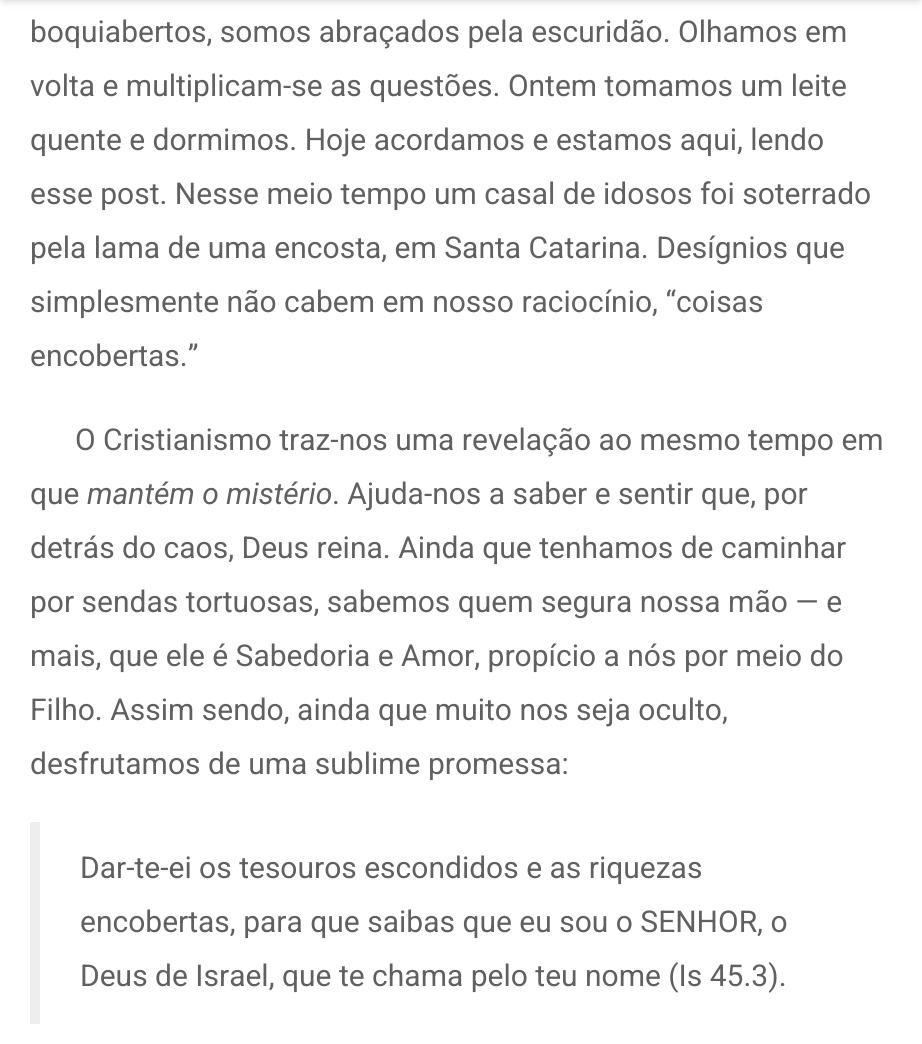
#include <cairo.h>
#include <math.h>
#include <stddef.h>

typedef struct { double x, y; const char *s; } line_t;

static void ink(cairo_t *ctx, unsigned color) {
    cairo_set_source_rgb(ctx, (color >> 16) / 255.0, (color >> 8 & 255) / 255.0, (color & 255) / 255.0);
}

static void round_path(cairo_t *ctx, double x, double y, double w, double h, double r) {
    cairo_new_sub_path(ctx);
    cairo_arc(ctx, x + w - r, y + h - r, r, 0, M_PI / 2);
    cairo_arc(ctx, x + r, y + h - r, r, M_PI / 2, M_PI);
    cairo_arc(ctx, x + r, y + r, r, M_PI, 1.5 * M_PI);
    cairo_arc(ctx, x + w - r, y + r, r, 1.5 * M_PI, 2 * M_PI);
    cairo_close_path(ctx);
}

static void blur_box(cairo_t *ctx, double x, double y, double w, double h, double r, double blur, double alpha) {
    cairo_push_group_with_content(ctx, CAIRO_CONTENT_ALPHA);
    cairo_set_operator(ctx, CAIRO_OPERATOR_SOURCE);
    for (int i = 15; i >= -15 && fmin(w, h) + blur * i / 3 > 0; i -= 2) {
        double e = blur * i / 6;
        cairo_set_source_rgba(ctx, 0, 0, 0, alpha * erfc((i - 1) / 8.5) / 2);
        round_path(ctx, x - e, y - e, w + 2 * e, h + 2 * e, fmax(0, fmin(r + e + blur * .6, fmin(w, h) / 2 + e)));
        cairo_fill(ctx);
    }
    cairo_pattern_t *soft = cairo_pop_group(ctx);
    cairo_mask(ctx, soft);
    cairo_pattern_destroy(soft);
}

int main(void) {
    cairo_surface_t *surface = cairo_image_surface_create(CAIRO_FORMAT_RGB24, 922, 1044);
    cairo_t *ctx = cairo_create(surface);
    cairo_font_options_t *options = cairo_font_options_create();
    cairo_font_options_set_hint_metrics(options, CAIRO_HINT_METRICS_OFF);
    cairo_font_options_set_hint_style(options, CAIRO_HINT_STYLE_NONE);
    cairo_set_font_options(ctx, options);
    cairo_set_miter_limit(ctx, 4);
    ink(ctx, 0xFFFFFF);
    cairo_paint(ctx);
    ink(ctx, 0x2A2A2A);
    blur_box(ctx, 4, -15, 914, 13, 0, 5, 0.4);
    cairo_select_font_face(ctx, "Roboto", CAIRO_FONT_SLANT_NORMAL, CAIRO_FONT_WEIGHT_NORMAL);
    cairo_set_font_size(ctx, 30);
    ink(ctx, 0x606060);
    {
        static const line_t items[] = {
            {30, 42, "boquiabertos, somos abraçados pela escuridão. Olhamos em"},
            {30, 96, "volta e multiplicam-se as questões. Ontem tomamos um leite"},
            {30, 150, "quente e dormimos. Hoje acordamos e estamos aqui, lendo"},
            {30, 204, "esse post. Nesse meio tempo um casal de idosos foi soterrado"},
            {30, 258, "pela lama de uma encosta, em Santa Catarina. Desígnios que"},
            {30, 312, "simplesmente não cabem em nosso raciocínio, “coisas"},
            {30, 366, "encobertas.”"},
            {75, 450, "O Cristianismo traz-nos uma revelação ao mesmo tempo em"},
            {30, 504, "que"},
        };
        for (size_t i = 0; i < sizeof items / sizeof *items; i++) {
            cairo_move_to(ctx, items[i].x, items[i].y);
            cairo_show_text(ctx, items[i].s);
        }
    }
    cairo_select_font_face(ctx, "Roboto", CAIRO_FONT_SLANT_ITALIC, CAIRO_FONT_WEIGHT_NORMAL);
    cairo_move_to(ctx, 87, 504);
    cairo_show_text(ctx, "mantém o mistério");
    cairo_select_font_face(ctx, "Roboto", CAIRO_FONT_SLANT_NORMAL, CAIRO_FONT_WEIGHT_NORMAL);
    {
        static const line_t items[] = {
            {332, 504, ". Ajuda-nos a saber e sentir que, por"},
            {30, 558, "detrás do caos, Deus reina. Ainda que tenhamos de caminhar"},
            {30, 612, "por sendas tortuosas, sabemos quem segura nossa mão — e"},
            {30, 666, "mais, que ele é Sabedoria e Amor, propício a nós por meio do"},
            {30, 720, "Filho. Assim sendo, ainda que muito nos seja oculto,"},
            {30, 774, "desfrutamos de uma sublime promessa:"},
        };
        for (size_t i = 0; i < sizeof items / sizeof *items; i++) {
            cairo_move_to(ctx, items[i].x, items[i].y);
            cairo_show_text(ctx, items[i].s);
        }
    }
    ink(ctx, 0xEEEEEE);
    cairo_rectangle(ctx, 30, 822, 10, 202);
    cairo_fill(ctx);
    ink(ctx, 0x606060);
    {
        static const line_t items[] = {
            {80, 878, "Dar-te-ei os tesouros escondidos e as riquezas"},
            {80, 932, "encobertas, para que saibas que eu sou o SENHOR, o"},
            {80, 986, "Deus de Israel, que te chama pelo teu nome (Is 45.3)."},
        };
        for (size_t i = 0; i < sizeof items / sizeof *items; i++) {
            cairo_move_to(ctx, items[i].x, items[i].y);
            cairo_show_text(ctx, items[i].s);
        }
    }
    cairo_surface_write_to_png(surface, "image.png");
    cairo_font_options_destroy(options);
    cairo_destroy(ctx);
    cairo_surface_destroy(surface);
    return 0;
}
